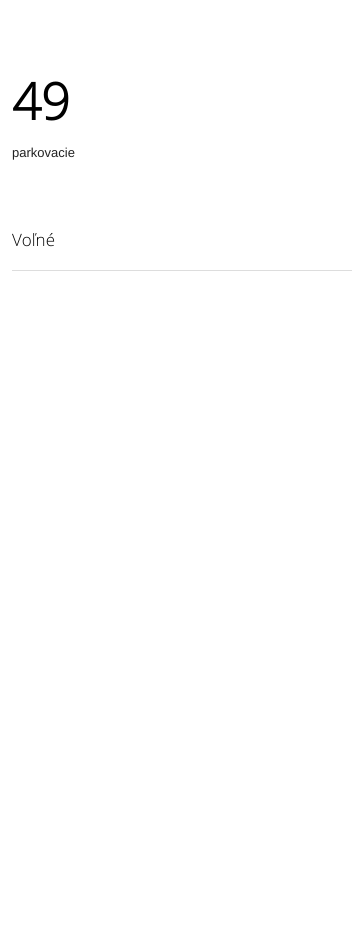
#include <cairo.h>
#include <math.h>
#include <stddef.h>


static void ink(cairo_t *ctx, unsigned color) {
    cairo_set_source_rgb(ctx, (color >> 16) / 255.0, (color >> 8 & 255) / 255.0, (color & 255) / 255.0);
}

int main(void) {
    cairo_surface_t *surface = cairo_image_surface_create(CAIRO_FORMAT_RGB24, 364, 947);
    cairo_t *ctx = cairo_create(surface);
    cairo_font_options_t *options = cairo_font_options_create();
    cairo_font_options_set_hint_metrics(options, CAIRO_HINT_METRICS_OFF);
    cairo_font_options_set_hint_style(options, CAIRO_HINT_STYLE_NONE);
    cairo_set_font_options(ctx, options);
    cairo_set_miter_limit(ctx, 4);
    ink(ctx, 0xFFFFFF);
    cairo_paint(ctx);
    cairo_select_font_face(ctx, "Open Sans", CAIRO_FONT_SLANT_NORMAL, CAIRO_FONT_WEIGHT_BOLD);
    cairo_set_font_size(ctx, 51);
    ink(ctx, 0x000000);
    cairo_move_to(ctx, 12, 120);
    cairo_show_text(ctx, "49");
    cairo_select_font_face(ctx, "Liberation Sans", CAIRO_FONT_SLANT_NORMAL, CAIRO_FONT_WEIGHT_NORMAL);
    cairo_set_font_size(ctx, 13);
    ink(ctx, 0x222222);
    cairo_move_to(ctx, 12, 157);
    cairo_show_text(ctx, "parkovacie");
    cairo_select_font_face(ctx, "Open Sans Light", CAIRO_FONT_SLANT_NORMAL, CAIRO_FONT_WEIGHT_NORMAL);
    cairo_set_font_size(ctx, 17);
    ink(ctx, 0x000000);
    cairo_move_to(ctx, 12, 246);
    cairo_show_text(ctx, "Voľné");
    ink(ctx, 0xDDDDDD);
    cairo_rectangle(ctx, 12, 270, 340, 1);
    cairo_fill(ctx);
    cairo_surface_write_to_png(surface, "image.png");
    cairo_font_options_destroy(options);
    cairo_destroy(ctx);
    cairo_surface_destroy(surface);
    return 0;
}
